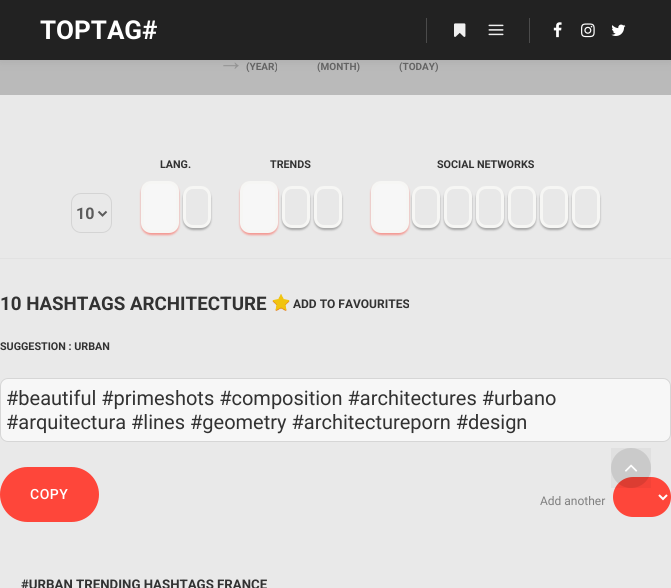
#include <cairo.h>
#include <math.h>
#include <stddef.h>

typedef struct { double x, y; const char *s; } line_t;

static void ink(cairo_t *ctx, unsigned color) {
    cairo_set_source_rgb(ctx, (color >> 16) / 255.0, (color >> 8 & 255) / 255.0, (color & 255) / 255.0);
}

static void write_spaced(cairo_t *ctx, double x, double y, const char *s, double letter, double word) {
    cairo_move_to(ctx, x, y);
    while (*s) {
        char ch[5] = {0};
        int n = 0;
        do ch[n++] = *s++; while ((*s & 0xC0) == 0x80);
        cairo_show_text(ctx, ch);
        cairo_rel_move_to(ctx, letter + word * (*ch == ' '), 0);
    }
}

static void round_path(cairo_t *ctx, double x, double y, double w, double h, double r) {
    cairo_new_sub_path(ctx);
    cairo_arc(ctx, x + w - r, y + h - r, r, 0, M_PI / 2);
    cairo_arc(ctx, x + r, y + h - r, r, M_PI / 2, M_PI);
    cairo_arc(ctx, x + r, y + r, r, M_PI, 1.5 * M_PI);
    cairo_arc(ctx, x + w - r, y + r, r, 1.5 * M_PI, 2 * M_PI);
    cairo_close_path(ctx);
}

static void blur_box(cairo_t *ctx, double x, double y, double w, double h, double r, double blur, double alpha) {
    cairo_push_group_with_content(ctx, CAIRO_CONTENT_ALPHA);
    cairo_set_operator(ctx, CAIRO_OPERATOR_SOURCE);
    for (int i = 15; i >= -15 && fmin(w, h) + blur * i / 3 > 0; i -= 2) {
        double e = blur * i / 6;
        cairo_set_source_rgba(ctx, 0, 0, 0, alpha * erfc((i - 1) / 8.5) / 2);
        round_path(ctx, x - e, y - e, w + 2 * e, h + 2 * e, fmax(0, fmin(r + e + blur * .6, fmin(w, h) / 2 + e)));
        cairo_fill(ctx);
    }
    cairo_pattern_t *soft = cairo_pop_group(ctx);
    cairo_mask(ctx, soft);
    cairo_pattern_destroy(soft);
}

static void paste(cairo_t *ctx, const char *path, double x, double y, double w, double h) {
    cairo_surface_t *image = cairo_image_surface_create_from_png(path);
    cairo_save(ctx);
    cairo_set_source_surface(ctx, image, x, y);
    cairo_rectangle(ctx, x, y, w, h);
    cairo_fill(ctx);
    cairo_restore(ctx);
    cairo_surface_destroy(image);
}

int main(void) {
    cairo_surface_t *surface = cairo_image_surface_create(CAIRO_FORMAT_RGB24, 671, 588);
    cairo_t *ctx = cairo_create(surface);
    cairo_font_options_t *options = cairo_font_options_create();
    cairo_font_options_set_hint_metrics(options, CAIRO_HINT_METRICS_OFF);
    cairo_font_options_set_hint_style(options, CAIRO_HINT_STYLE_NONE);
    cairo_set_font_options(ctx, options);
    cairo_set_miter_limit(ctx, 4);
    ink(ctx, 0xE9E9E9);
    cairo_paint(ctx);
    ink(ctx, 0xBABABA);
    cairo_rectangle(ctx, 0, 60, 671, 35);
    cairo_fill(ctx);
    ink(ctx, 0x000000);
    blur_box(ctx, 0, 0, 671, 60, 0, 6, 0.09);
    ink(ctx, 0x222222);
    cairo_rectangle(ctx, 0, 0, 671, 60);
    cairo_fill(ctx);
    cairo_select_font_face(ctx, "Roboto", CAIRO_FONT_SLANT_NORMAL, CAIRO_FONT_WEIGHT_BOLD);
    cairo_set_font_size(ctx, 26);
    ink(ctx, 0xFFFFFF);
    cairo_move_to(ctx, 40, 39);
    cairo_show_text(ctx, "TOPTAG#");
    ink(ctx, 0x4B4B4B);
    cairo_rectangle(ctx, 426, 18, 1, 25);
    cairo_fill(ctx);
    paste(ctx, "media/1.png", 454, 23, 12, 14);
    paste(ctx, "media/2.png", 488, 24, 16, 12);
    cairo_rectangle(ctx, 529, 18, 1, 25);
    cairo_fill(ctx);
    paste(ctx, "media/3.png", 553, 22, 9, 16);
    paste(ctx, "media/4.png", 581, 23, 14, 15);
    paste(ctx, "media/5.png", 611, 24, 15, 12);
    cairo_select_font_face(ctx, "Liberation Sans", CAIRO_FONT_SLANT_NORMAL, CAIRO_FONT_WEIGHT_BOLD);
    ink(ctx, 0x949494);
    cairo_move_to(ctx, 218, 70);
    cairo_show_text(ctx, "→");
    cairo_select_font_face(ctx, "Roboto", CAIRO_FONT_SLANT_NORMAL, CAIRO_FONT_WEIGHT_BOLD);
    cairo_set_font_size(ctx, 10);
    ink(ctx, 0x646464);
    {
        static const line_t items[] = {
            {246, 70, "(YEAR)"},
            {317, 70, "(MONTH)"},
            {399, 70, "(TODAY)"},
        };
        for (size_t i = 0; i < sizeof items / sizeof *items; i++) {
            cairo_move_to(ctx, items[i].x, items[i].y);
            cairo_show_text(ctx, items[i].s);
        }
    }
    ink(ctx, 0xE2E2E2);
    cairo_rectangle(ctx, 0, 258, 671, 1);
    cairo_fill(ctx);
    cairo_set_font_size(ctx, 10.75);
    ink(ctx, 0x323232);
    cairo_move_to(ctx, 160, 168);
    cairo_show_text(ctx, "LANG.");
    ink(ctx, 0xFE463A);
    blur_box(ctx, 141, 183, 38, 52, 10, 1, 0.5);
    ink(ctx, 0xF7F7F7);
    round_path(ctx, 142.5, 182.5, 35, 49, 8.5);
    cairo_fill_preserve(ctx);
    ink(ctx, 0xF6F6F4);
    cairo_set_line_width(ctx, 3);
    cairo_stroke(ctx);
    ink(ctx, 0x000000);
    blur_box(ctx, 183, 188, 28, 42, 10, 1, 0.29);
    ink(ctx, 0xE8E8E8);
    round_path(ctx, 184.5, 187.5, 25, 39, 8.5);
    cairo_fill_preserve(ctx);
    ink(ctx, 0xF6F6F4);
    cairo_stroke(ctx);
    ink(ctx, 0x323232);
    cairo_move_to(ctx, 270, 168);
    cairo_show_text(ctx, "TRENDS");
    ink(ctx, 0xFE463A);
    blur_box(ctx, 240, 183, 38, 52, 10, 1, 0.5);
    ink(ctx, 0xF7F7F7);
    round_path(ctx, 241.5, 182.5, 35, 49, 8.5);
    cairo_fill_preserve(ctx);
    ink(ctx, 0xF6F6F4);
    cairo_stroke(ctx);
    ink(ctx, 0x000000);
    blur_box(ctx, 282, 188, 28, 42, 10, 1, 0.29);
    ink(ctx, 0xE8E8E8);
    round_path(ctx, 283.5, 187.5, 25, 39, 8.5);
    cairo_fill_preserve(ctx);
    ink(ctx, 0xF6F6F4);
    cairo_stroke(ctx);
    ink(ctx, 0x000000);
    blur_box(ctx, 314, 188, 28, 42, 10, 1, 0.29);
    ink(ctx, 0xE8E8E8);
    round_path(ctx, 315.5, 187.5, 25, 39, 8.5);
    cairo_fill_preserve(ctx);
    ink(ctx, 0xF6F6F4);
    cairo_stroke(ctx);
    ink(ctx, 0x323232);
    cairo_move_to(ctx, 437, 168);
    cairo_show_text(ctx, "SOCIAL NETWORKS");
    ink(ctx, 0xFE463A);
    blur_box(ctx, 371, 183, 38, 52, 10, 1, 0.5);
    ink(ctx, 0xF7F7F7);
    round_path(ctx, 372.5, 182.5, 35, 49, 8.5);
    cairo_fill_preserve(ctx);
    ink(ctx, 0xF6F6F4);
    cairo_stroke(ctx);
    ink(ctx, 0x000000);
    blur_box(ctx, 412, 188, 28, 42, 10, 1, 0.29);
    ink(ctx, 0xE8E8E8);
    round_path(ctx, 413.5, 187.5, 25, 39, 8.5);
    cairo_fill_preserve(ctx);
    ink(ctx, 0xF6F6F4);
    cairo_stroke(ctx);
    ink(ctx, 0x000000);
    blur_box(ctx, 444, 188, 28, 42, 10, 1, 0.29);
    ink(ctx, 0xE8E8E8);
    round_path(ctx, 445.5, 187.5, 25, 39, 8.5);
    cairo_fill_preserve(ctx);
    ink(ctx, 0xF6F6F4);
    cairo_stroke(ctx);
    ink(ctx, 0x000000);
    blur_box(ctx, 476, 188, 28, 42, 10, 1, 0.29);
    ink(ctx, 0xE8E8E8);
    round_path(ctx, 477.5, 187.5, 25, 39, 8.5);
    cairo_fill_preserve(ctx);
    ink(ctx, 0xF6F6F4);
    cairo_stroke(ctx);
    ink(ctx, 0x000000);
    blur_box(ctx, 508, 188, 28, 42, 10, 1, 0.29);
    ink(ctx, 0xE8E8E8);
    round_path(ctx, 509.5, 187.5, 25, 39, 8.5);
    cairo_fill_preserve(ctx);
    ink(ctx, 0xF6F6F4);
    cairo_stroke(ctx);
    ink(ctx, 0x000000);
    blur_box(ctx, 540, 188, 28, 42, 10, 1, 0.29);
    ink(ctx, 0xE8E8E8);
    round_path(ctx, 541.5, 187.5, 25, 39, 8.5);
    cairo_fill_preserve(ctx);
    ink(ctx, 0xF6F6F4);
    cairo_stroke(ctx);
    ink(ctx, 0x000000);
    blur_box(ctx, 572, 188, 28, 42, 10, 1, 0.29);
    ink(ctx, 0xE8E8E8);
    round_path(ctx, 573.5, 187.5, 25, 39, 8.5);
    cairo_fill_preserve(ctx);
    ink(ctx, 0xF6F6F4);
    cairo_stroke(ctx);
    round_path(ctx, 71.5, 193.5, 40, 39, 9.5);
    ink(ctx, 0xD4D4D4);
    cairo_set_line_width(ctx, 1);
    cairo_stroke(ctx);
    cairo_new_path(ctx);
    cairo_move_to(ctx, 98.5, 211.5);
    cairo_line_to(ctx, 102.5, 215.5);
    cairo_line_to(ctx, 106.5, 211.5);
    ink(ctx, 0x5B5B5B);
    cairo_set_line_width(ctx, 2);
    cairo_stroke(ctx);
    cairo_set_font_size(ctx, 16);
    cairo_move_to(ctx, 76, 219);
    cairo_show_text(ctx, "10");
    cairo_set_font_size(ctx, 18.75);
    ink(ctx, 0x323232);
    cairo_move_to(ctx, 0, 310);
    cairo_show_text(ctx, "10 HASHTAGS ARCHITECTURE");
    paste(ctx, "media/6.png", 272, 294, 18, 17);
    cairo_set_font_size(ctx, 12);
    cairo_move_to(ctx, 293, 308);
    cairo_show_text(ctx, "ADD TO FAVOURITES");
    cairo_set_font_size(ctx, 10.75);
    cairo_move_to(ctx, 0, 350);
    cairo_show_text(ctx, "SUGGESTION : URBAN");
    ink(ctx, 0xF7F7F7);
    round_path(ctx, 0.5, 378.5, 670, 63, 7.5);
    cairo_fill_preserve(ctx);
    ink(ctx, 0xD6D6D6);
    cairo_set_line_width(ctx, 1);
    cairo_stroke(ctx);
    cairo_select_font_face(ctx, "Roboto", CAIRO_FONT_SLANT_NORMAL, CAIRO_FONT_WEIGHT_NORMAL);
    cairo_set_font_size(ctx, 20);
    ink(ctx, 0x323232);
    cairo_move_to(ctx, 6, 405);
    cairo_show_text(ctx, "#beautiful #primeshots #composition #architectures #urbano");
    cairo_move_to(ctx, 6, 429);
    cairo_show_text(ctx, "#arquitectura #lines #geometry #architectureporn #design");
    ink(ctx, 0xFE463A);
    round_path(ctx, 0, 467, 99, 55, 27.5);
    cairo_fill(ctx);
    cairo_select_font_face(ctx, "Roboto Medium", CAIRO_FONT_SLANT_NORMAL, CAIRO_FONT_WEIGHT_NORMAL);
    cairo_set_font_size(ctx, 14);
    ink(ctx, 0xFFFFFF);
    write_spaced(ctx, 30, 499, "COPY", 0.5, 0);
    cairo_select_font_face(ctx, "Roboto", CAIRO_FONT_SLANT_NORMAL, CAIRO_FONT_WEIGHT_NORMAL);
    cairo_set_font_size(ctx, 12);
    ink(ctx, 0x7F7F7F);
    cairo_move_to(ctx, 540, 505);
    cairo_show_text(ctx, "Add another");
    ink(ctx, 0xFE463A);
    round_path(ctx, 613, 477, 58, 40, 20);
    cairo_fill(ctx);
    cairo_new_path(ctx);
    cairo_move_to(ctx, 659, 495);
    cairo_line_to(ctx, 663, 499);
    cairo_line_to(ctx, 667, 495);
    ink(ctx, 0xFFFFFF);
    cairo_set_line_width(ctx, 2);
    cairo_stroke(ctx);
    cairo_select_font_face(ctx, "Roboto", CAIRO_FONT_SLANT_NORMAL, CAIRO_FONT_WEIGHT_BOLD);
    cairo_set_font_size(ctx, 13.25);
    ink(ctx, 0x323232);
    cairo_move_to(ctx, 21, 589);
    cairo_show_text(ctx, "#URBAN TRENDING HASHTAGS FRANCE");
    cairo_set_source_rgba(ctx, 0, 0, 0, 0.1);
    cairo_new_path(ctx);
    cairo_arc(ctx, 631, 468, 20, 0, 2 * M_PI);
    cairo_fill(ctx);
    cairo_set_source_rgba(ctx, 0, 0, 0, 0.04);
    cairo_rectangle(ctx, 611, 448, 40, 40);
    cairo_fill(ctx);
    paste(ctx, "media/7.png", 625, 464, 13, 8);
    cairo_surface_write_to_png(surface, "image.png");
    cairo_font_options_destroy(options);
    cairo_destroy(ctx);
    cairo_surface_destroy(surface);
    return 0;
}
